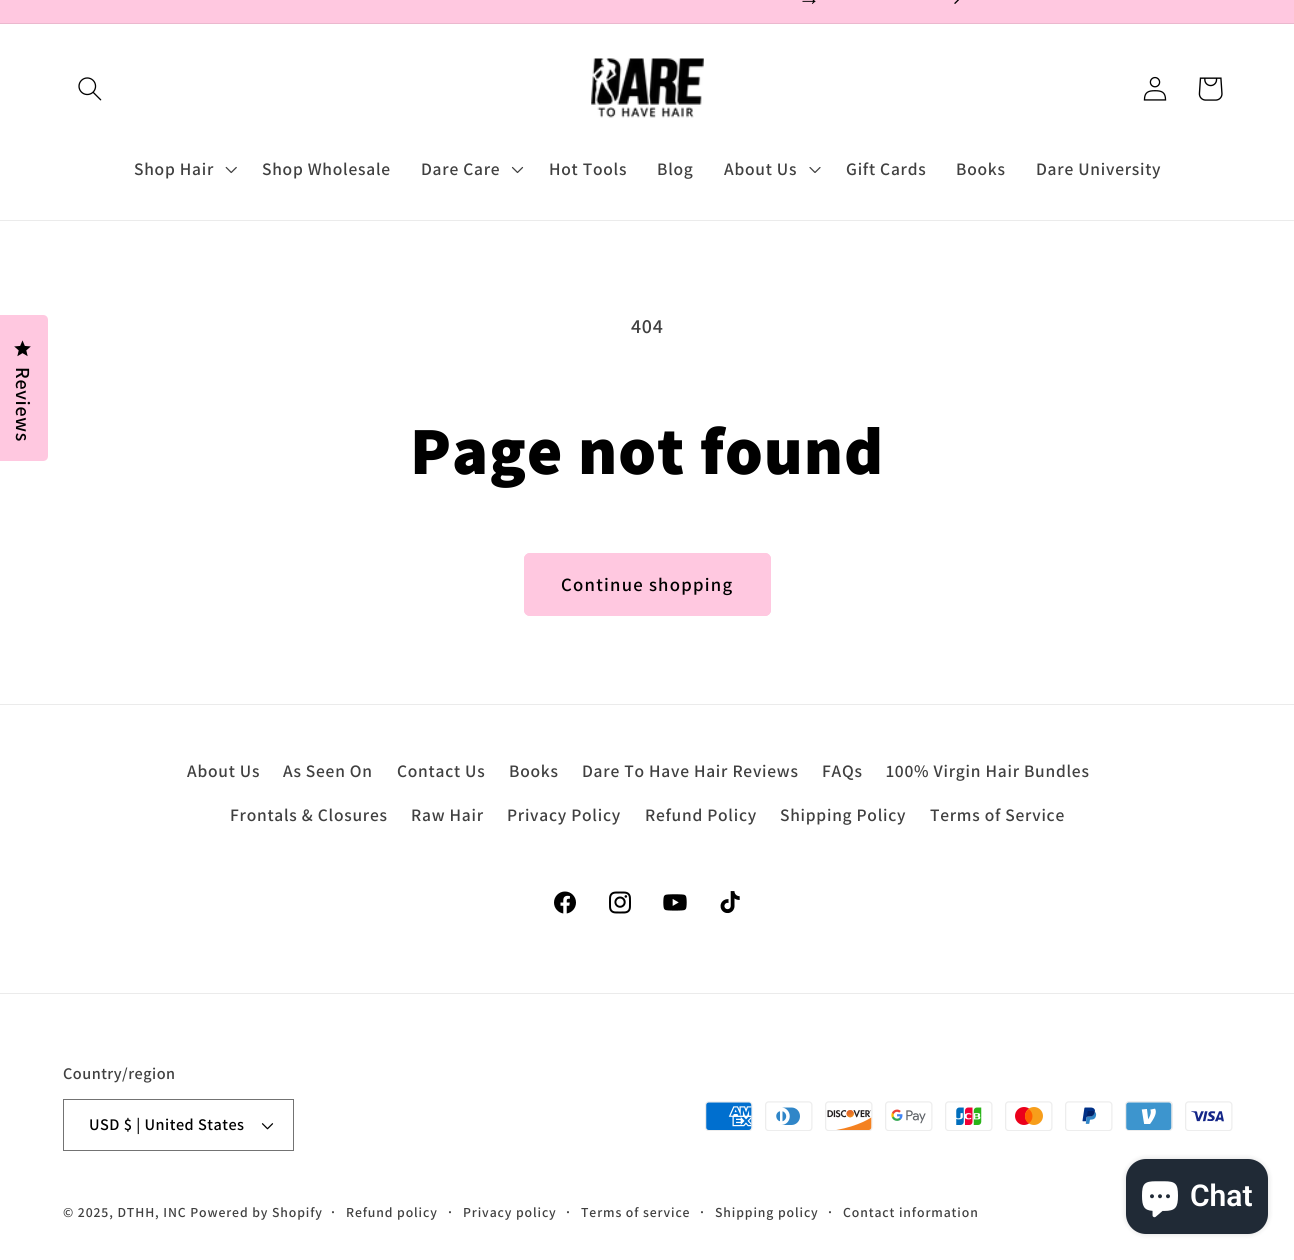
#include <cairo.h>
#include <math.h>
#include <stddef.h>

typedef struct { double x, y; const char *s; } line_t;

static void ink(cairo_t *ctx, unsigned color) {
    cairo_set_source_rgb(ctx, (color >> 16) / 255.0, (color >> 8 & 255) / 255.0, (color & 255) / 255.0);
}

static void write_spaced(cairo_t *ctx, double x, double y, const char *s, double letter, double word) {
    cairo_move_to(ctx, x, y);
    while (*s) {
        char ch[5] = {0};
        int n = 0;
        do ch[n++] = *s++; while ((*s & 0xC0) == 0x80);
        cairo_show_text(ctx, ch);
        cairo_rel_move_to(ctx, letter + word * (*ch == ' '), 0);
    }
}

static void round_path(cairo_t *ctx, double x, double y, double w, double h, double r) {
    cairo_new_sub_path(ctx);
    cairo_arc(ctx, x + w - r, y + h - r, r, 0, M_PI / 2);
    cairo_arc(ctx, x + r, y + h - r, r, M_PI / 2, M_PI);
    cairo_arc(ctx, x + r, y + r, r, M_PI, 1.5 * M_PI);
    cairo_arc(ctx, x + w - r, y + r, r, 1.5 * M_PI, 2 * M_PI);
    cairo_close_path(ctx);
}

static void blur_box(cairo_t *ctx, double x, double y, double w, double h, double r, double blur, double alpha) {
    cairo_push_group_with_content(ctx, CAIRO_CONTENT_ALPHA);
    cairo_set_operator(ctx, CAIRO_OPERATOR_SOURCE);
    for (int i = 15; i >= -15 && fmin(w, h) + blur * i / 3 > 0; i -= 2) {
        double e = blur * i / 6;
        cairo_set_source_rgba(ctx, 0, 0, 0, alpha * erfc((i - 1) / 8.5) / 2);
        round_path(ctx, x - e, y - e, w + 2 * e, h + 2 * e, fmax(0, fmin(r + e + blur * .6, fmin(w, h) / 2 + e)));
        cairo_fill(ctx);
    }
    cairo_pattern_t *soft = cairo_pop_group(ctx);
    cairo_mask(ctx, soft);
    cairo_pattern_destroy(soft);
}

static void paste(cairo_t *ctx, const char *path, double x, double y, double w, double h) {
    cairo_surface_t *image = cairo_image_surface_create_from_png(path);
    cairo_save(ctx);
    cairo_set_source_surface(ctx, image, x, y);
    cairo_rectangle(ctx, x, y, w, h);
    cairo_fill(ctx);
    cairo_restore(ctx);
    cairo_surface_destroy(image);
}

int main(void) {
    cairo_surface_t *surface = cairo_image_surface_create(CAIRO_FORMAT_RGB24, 1294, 1260);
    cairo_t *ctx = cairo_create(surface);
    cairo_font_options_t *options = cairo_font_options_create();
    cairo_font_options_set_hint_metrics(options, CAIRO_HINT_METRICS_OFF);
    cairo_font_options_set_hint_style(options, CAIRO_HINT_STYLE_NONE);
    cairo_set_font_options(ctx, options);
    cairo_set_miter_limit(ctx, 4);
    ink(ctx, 0xFFFFFF);
    cairo_paint(ctx);
    ink(ctx, 0xFFC8E0);
    cairo_rectangle(ctx, 0, 0, 1294, 23);
    cairo_fill(ctx);
    ink(ctx, 0xEBB8CE);
    cairo_rectangle(ctx, 0, 23, 1294, 1);
    cairo_fill(ctx);
    cairo_select_font_face(ctx, "Liberation Sans", CAIRO_FONT_SLANT_NORMAL, CAIRO_FONT_WEIGHT_BOLD);
    cairo_set_font_size(ctx, 22);
    ink(ctx, 0x000000);
    write_spaced(ctx, 798, 5, "→", 1.25, 0);
    paste(ctx, "media/1.png", 954, 0, 5, 4);
    ink(ctx, 0xEBEBEB);
    cairo_rectangle(ctx, 0, 220, 1294, 1);
    cairo_fill(ctx);
    paste(ctx, "media/2.png", 78, 77, 24, 24);
    paste(ctx, "media/3.png", 591, 58, 113, 60);
    paste(ctx, "media/4.png", 1143, 76, 24, 25);
    paste(ctx, "media/5.png", 1198, 77, 25, 24);
    cairo_select_font_face(ctx, "Assistant SemiBold", CAIRO_FONT_SLANT_NORMAL, CAIRO_FONT_WEIGHT_NORMAL);
    cairo_set_font_size(ctx, 17.5);
    ink(ctx, 0x404040);
    write_spaced(ctx, 134, 175, "Shop Hair", 0.75, 0);
    paste(ctx, "media/6.png", 225, 166, 12, 8);
    write_spaced(ctx, 262, 175, "Shop Wholesale", 0.75, 0);
    write_spaced(ctx, 421, 175, "Dare Care", 0.75, 0);
    paste(ctx, "media/7.png", 511, 166, 13, 8);
    {
        static const line_t items[] = {
            {549, 175, "Hot Tools"},
            {657, 175, "Blog"},
            {724, 175, "About Us"},
        };
        for (size_t i = 0; i < sizeof items / sizeof *items; i++) {
            write_spaced(ctx, items[i].x, items[i].y, items[i].s, 0.75, 0);
        }
    }
    paste(ctx, "media/8.png", 809, 167, 12, 6);
    {
        static const line_t items[] = {
            {846, 175, "Gift Cards"},
            {956, 175, "Books"},
            {1036, 175, "Dare University"},
        };
        for (size_t i = 0; i < sizeof items / sizeof *items; i++) {
            write_spaced(ctx, items[i].x, items[i].y, items[i].s, 0.75, 0);
        }
    }
    ink(ctx, 0xFFC8E0);
    cairo_new_path(ctx);
    cairo_move_to(ctx, -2, 315);
    cairo_line_to(ctx, 43, 315);
    cairo_curve_to(ctx, 46, 315, 48, 317, 48, 320);
    cairo_line_to(ctx, 48, 456);
    cairo_curve_to(ctx, 48, 459, 46, 461, 43, 461);
    cairo_line_to(ctx, -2, 461);
    cairo_close_path(ctx);
    cairo_fill(ctx);
    paste(ctx, "media/9.png", 14, 340, 17, 17);
    cairo_set_font_size(ctx, 20);
    ink(ctx, 0x000000);
    cairo_save(ctx);
    cairo_translate(ctx, 16, 367);
    cairo_rotate(ctx, 90.1 * M_PI / 180);
    write_spaced(ctx, 0, 0, "Reviews", 0.75, 0);
    cairo_restore(ctx);
    ink(ctx, 0x404040);
    write_spaced(ctx, 631, 333, "404", 0.75, 0);
    cairo_select_font_face(ctx, "Assistant ExtraBold", CAIRO_FONT_SLANT_NORMAL, CAIRO_FONT_WEIGHT_NORMAL);
    cairo_set_font_size(ctx, 67.5);
    ink(ctx, 0x000000);
    write_spaced(ctx, 410, 474, "Page not found", 1, 0);
    ink(ctx, 0xFFC8E0);
    round_path(ctx, 524, 553, 247, 63, 6);
    cairo_fill(ctx);
    round_path(ctx, 526, 555, 243, 59, 4);
    cairo_set_line_width(ctx, 4);
    cairo_stroke(ctx);
    cairo_select_font_face(ctx, "Assistant SemiBold", CAIRO_FONT_SLANT_NORMAL, CAIRO_FONT_WEIGHT_NORMAL);
    cairo_set_font_size(ctx, 18.75);
    ink(ctx, 0x000000);
    write_spaced(ctx, 561, 591, "Continue shopping", 1.25, 0);
    ink(ctx, 0xEBEBEB);
    cairo_rectangle(ctx, 0, 704, 1294, 1);
    cairo_fill(ctx);
    cairo_set_font_size(ctx, 17.5);
    ink(ctx, 0x404040);
    {
        static const line_t items[] = {
            {187, 777, "About Us"},
            {283, 777, "As Seen On"},
            {397, 777, "Contact Us"},
            {509, 777, "Books"},
            {582, 777, "Dare To Have Hair Reviews"},
            {822, 777, "FAQs"},
            {886, 777, "100% Virgin Hair Bundles"},
            {230, 821, "Frontals & Closures"},
            {411, 821, "Raw Hair"},
            {507, 821, "Privacy Policy"},
            {645, 821, "Refund Policy"},
            {780, 821, "Shipping Policy"},
            {930, 821, "Terms of Service"},
        };
        for (size_t i = 0; i < sizeof items / sizeof *items; i++) {
            write_spaced(ctx, items[i].x, items[i].y, items[i].s, 0.75, 0);
        }
    }
    paste(ctx, "media/10.png", 554, 891, 22, 23);
    paste(ctx, "media/11.png", 609, 891, 22, 23);
    paste(ctx, "media/12.png", 663, 894, 24, 17);
    paste(ctx, "media/13.png", 720, 891, 20, 23);
    ink(ctx, 0xEBEBEB);
    cairo_rectangle(ctx, 0, 993, 1294, 1);
    cairo_fill(ctx);
    cairo_set_font_size(ctx, 16.25);
    ink(ctx, 0x404040);
    write_spaced(ctx, 63, 1079, "Country/region", 0.5, 0);
    paste(ctx, "media/14.png", 261, 1123, 13, 7);
    cairo_rectangle(ctx, 63.5, 1099.5, 230, 51);
    ink(ctx, 0x737373);
    cairo_set_line_width(ctx, 1);
    cairo_stroke(ctx);
    ink(ctx, 0x000000);
    write_spaced(ctx, 89, 1130, "USD $ | United States", 0.5, 0);
    paste(ctx, "media/15.png", 705, 1101, 48, 30);
    paste(ctx, "media/16.png", 765, 1101, 48, 30);
    paste(ctx, "media/17.png", 825, 1101, 48, 30);
    paste(ctx, "media/18.png", 885, 1101, 48, 30);
    paste(ctx, "media/19.png", 945, 1101, 48, 30);
    paste(ctx, "media/20.png", 1005, 1101, 48, 30);
    paste(ctx, "media/21.png", 1065, 1101, 48, 30);
    paste(ctx, "media/22.png", 1125, 1101, 48, 30);
    paste(ctx, "media/23.png", 1185, 1101, 48, 30);
    cairo_set_font_size(ctx, 13.75);
    ink(ctx, 0x404040);
    write_spaced(ctx, 63, 1217, "© 2025, DTHH, INC Powered by Shopify", 0.9, 0);
    cairo_set_font_size(ctx, 15);
    write_spaced(ctx, 331, 1217, "·", 0.9, 0);
    cairo_set_font_size(ctx, 13.75);
    write_spaced(ctx, 346, 1217, "Refund policy", 0.9, 0);
    cairo_set_font_size(ctx, 15);
    write_spaced(ctx, 448, 1217, "·", 0.9, 0);
    cairo_set_font_size(ctx, 13.75);
    write_spaced(ctx, 463, 1217, "Privacy policy", 0.9, 0);
    cairo_set_font_size(ctx, 15);
    write_spaced(ctx, 566, 1217, "·", 0.9, 0);
    cairo_set_font_size(ctx, 13.75);
    write_spaced(ctx, 581, 1217, "Terms of service", 0.9, 0);
    cairo_set_font_size(ctx, 15);
    write_spaced(ctx, 700, 1217, "·", 0.9, 0);
    cairo_set_font_size(ctx, 13.75);
    write_spaced(ctx, 715, 1217, "Shipping policy", 0.9, 0);
    cairo_set_font_size(ctx, 15);
    write_spaced(ctx, 828, 1217, "·", 0.9, 0);
    cairo_set_font_size(ctx, 13.75);
    write_spaced(ctx, 843, 1217, "Contact information", 0.9, 0);
    ink(ctx, 0x000000);
    blur_box(ctx, 1126, 1159, 142, 75, 20, 3, 0.15);
    ink(ctx, 0x202A36);
    round_path(ctx, 1126, 1159, 142, 75, 20);
    cairo_fill(ctx);
    paste(ctx, "media/24.png", 1142, 1181, 36, 37);
    cairo_select_font_face(ctx, "Roboto SemiBold", CAIRO_FONT_SLANT_NORMAL, CAIRO_FONT_WEIGHT_NORMAL);
    cairo_set_font_size(ctx, 30);
    ink(ctx, 0xFFFFFF);
    cairo_move_to(ctx, 1190, 1206);
    cairo_show_text(ctx, "Chat");
    cairo_surface_write_to_png(surface, "image.png");
    cairo_font_options_destroy(options);
    cairo_destroy(ctx);
    cairo_surface_destroy(surface);
    return 0;
}
